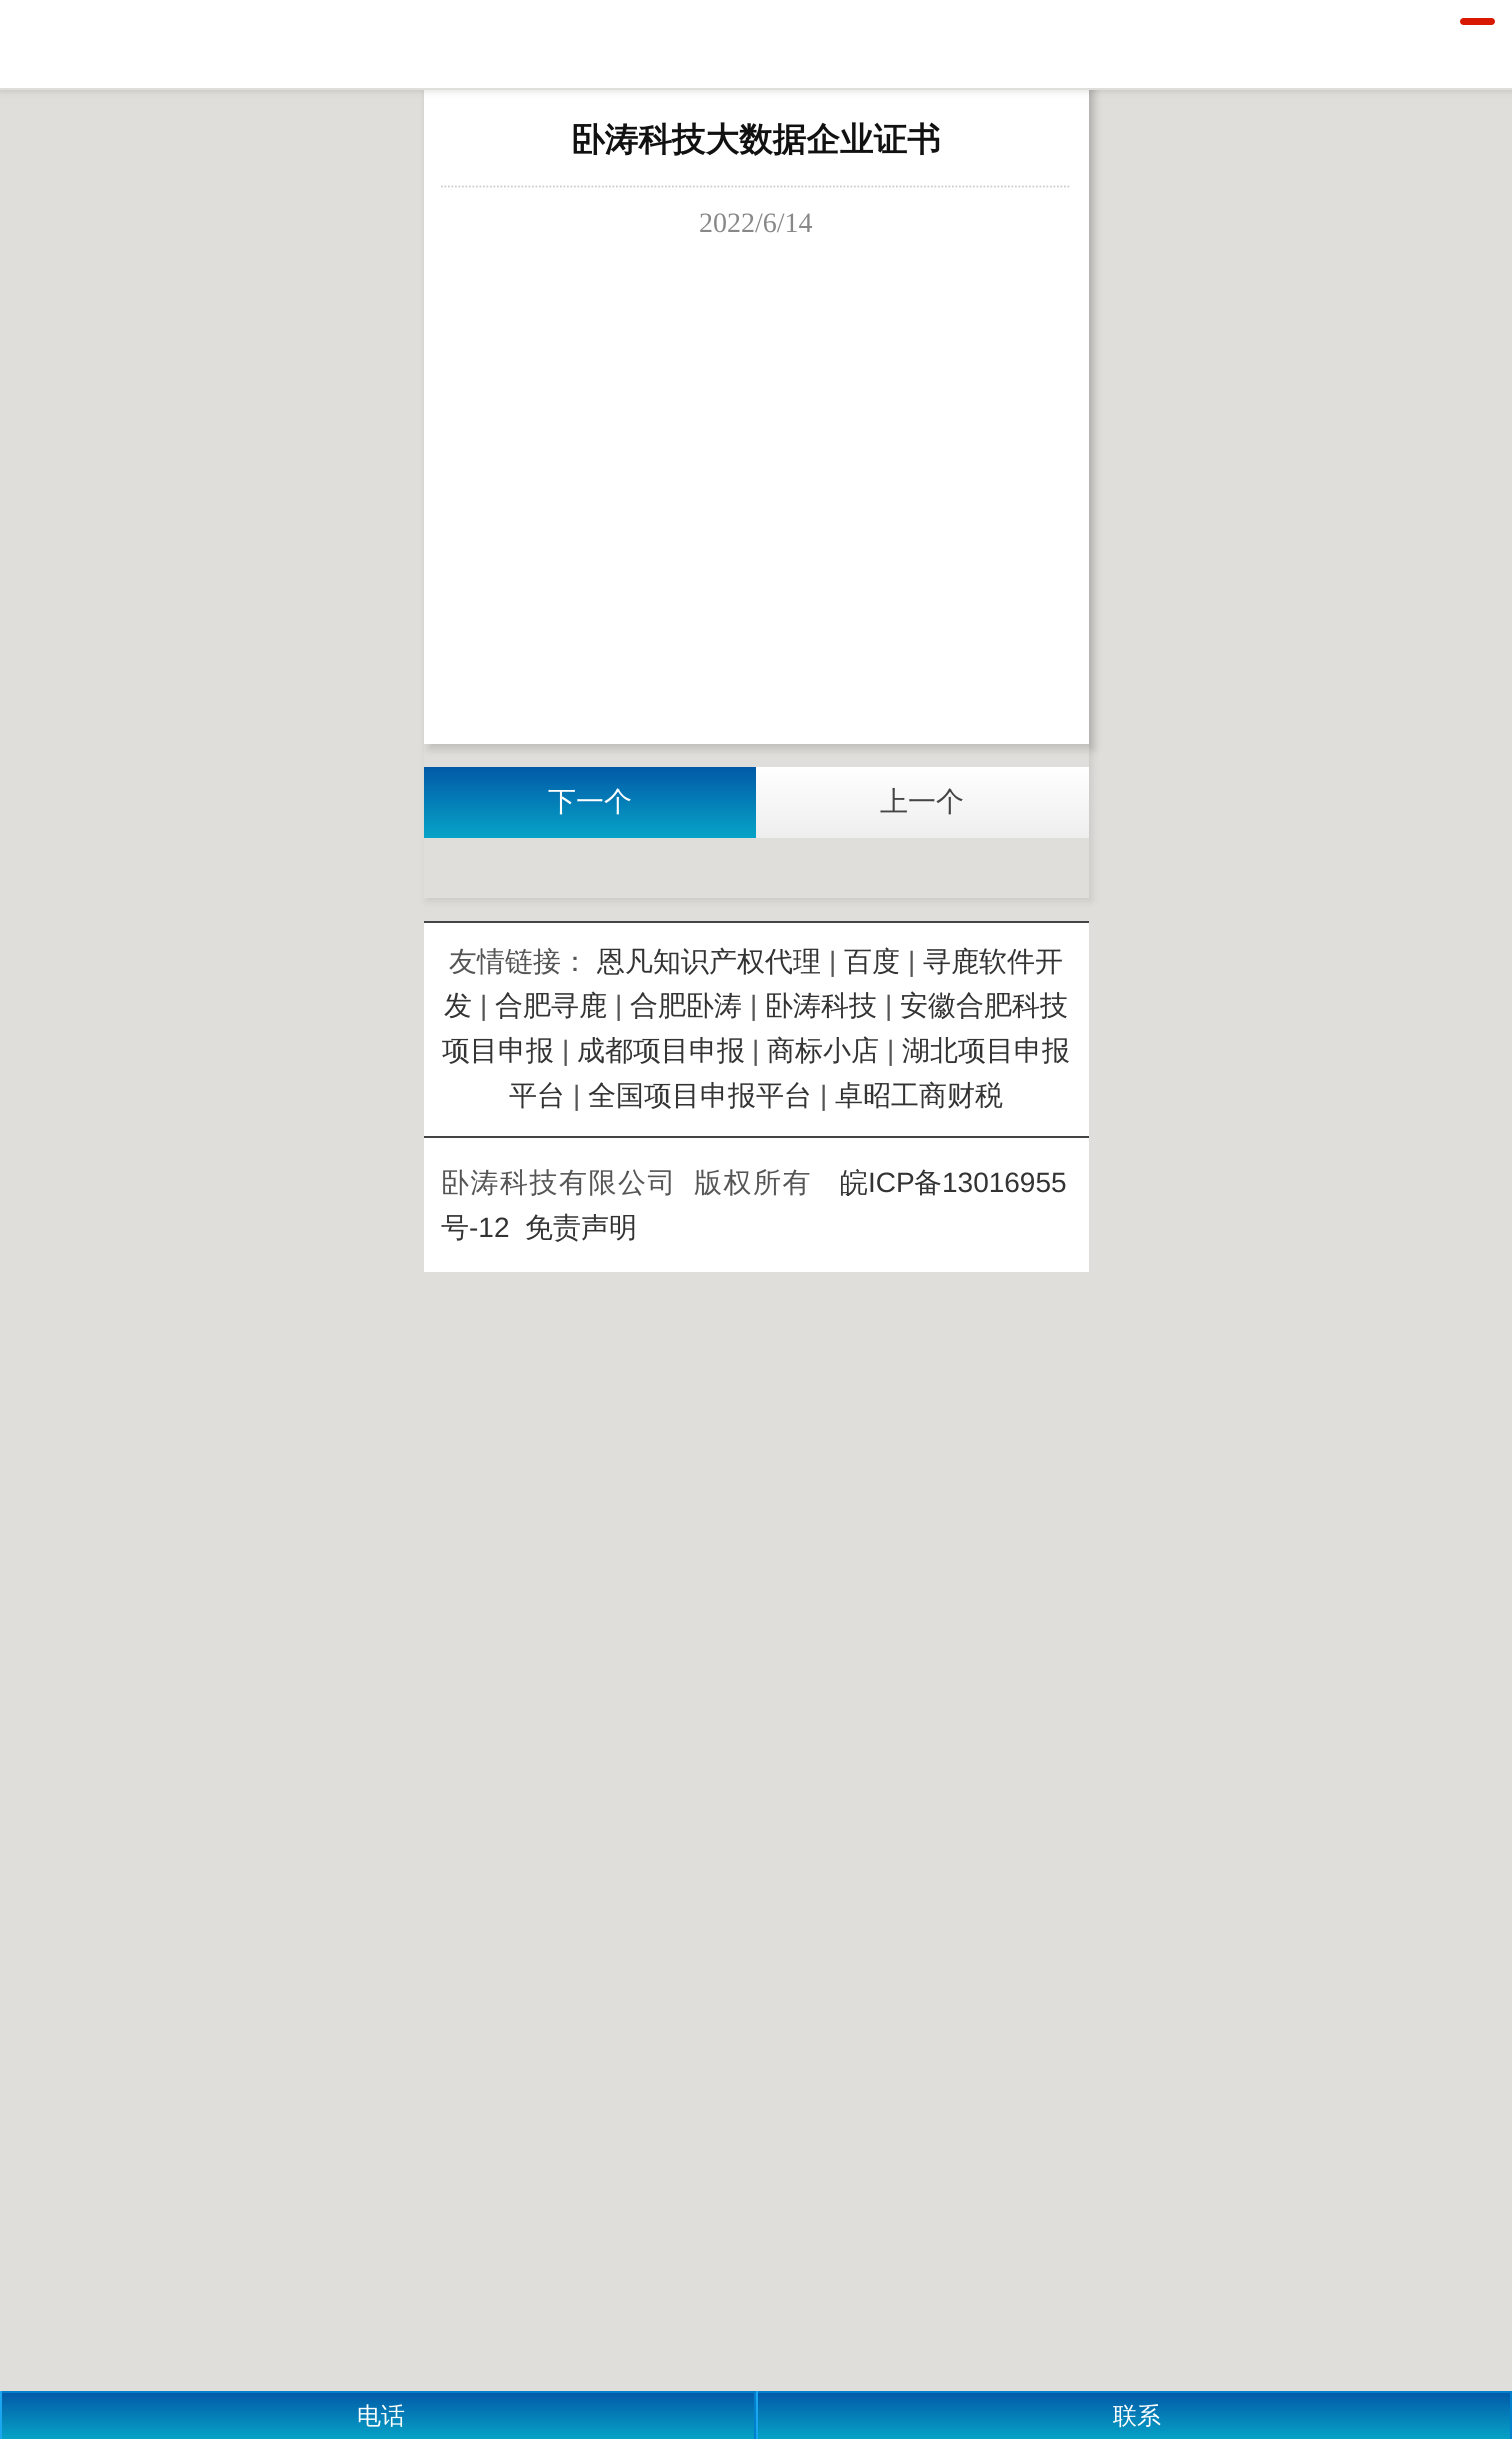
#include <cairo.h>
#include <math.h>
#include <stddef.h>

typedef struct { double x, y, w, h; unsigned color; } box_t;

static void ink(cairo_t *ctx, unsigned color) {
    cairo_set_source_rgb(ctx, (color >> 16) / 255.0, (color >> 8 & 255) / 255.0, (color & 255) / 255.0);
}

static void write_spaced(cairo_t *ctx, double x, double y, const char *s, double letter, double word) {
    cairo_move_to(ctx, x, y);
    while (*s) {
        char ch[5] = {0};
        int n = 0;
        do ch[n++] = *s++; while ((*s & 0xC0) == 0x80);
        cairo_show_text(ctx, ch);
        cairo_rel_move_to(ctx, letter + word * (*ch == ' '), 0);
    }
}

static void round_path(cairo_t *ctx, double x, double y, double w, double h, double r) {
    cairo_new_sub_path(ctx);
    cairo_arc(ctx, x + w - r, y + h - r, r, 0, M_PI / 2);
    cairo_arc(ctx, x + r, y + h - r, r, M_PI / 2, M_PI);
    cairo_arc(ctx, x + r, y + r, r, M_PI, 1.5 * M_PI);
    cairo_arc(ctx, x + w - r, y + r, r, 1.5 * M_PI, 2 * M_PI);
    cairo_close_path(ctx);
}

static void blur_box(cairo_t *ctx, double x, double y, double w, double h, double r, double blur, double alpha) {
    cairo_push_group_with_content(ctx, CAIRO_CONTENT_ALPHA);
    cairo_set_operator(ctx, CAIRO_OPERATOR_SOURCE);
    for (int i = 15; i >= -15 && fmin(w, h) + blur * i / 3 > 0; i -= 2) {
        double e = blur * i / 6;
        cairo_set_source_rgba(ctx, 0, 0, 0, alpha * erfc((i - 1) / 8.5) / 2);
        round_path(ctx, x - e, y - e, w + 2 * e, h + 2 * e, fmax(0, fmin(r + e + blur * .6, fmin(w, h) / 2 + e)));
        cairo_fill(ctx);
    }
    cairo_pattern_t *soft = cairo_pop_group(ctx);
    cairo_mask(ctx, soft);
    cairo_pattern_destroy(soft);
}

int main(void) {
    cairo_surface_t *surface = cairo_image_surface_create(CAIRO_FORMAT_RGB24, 1512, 2439);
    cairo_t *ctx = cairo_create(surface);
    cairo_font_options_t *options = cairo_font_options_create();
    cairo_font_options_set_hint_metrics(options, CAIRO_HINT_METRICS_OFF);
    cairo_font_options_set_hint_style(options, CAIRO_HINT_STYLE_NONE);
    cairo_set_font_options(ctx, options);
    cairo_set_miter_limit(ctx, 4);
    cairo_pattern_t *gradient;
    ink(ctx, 0xE0DEDA);
    cairo_paint(ctx);
    cairo_save(ctx);
    cairo_set_fill_rule(ctx, CAIRO_FILL_RULE_EVEN_ODD);
    cairo_new_path(ctx);
    cairo_move_to(ctx, 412, 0);
    cairo_line_to(ctx, 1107, 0);
    cairo_line_to(ctx, 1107, 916);
    cairo_line_to(ctx, 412, 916);
    cairo_close_path(ctx);
    cairo_move_to(ctx, 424, 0);
    cairo_line_to(ctx, 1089, 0);
    cairo_line_to(ctx, 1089, 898);
    cairo_line_to(ctx, 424, 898);
    cairo_close_path(ctx);
    cairo_clip(ctx);
    ink(ctx, 0x000000);
    blur_box(ctx, 427, 4, 665, 897, 0, 4.5, 0.1);
    cairo_restore(ctx);
    ink(ctx, 0x000000);
    blur_box(ctx, 429, 5, 665, 744, 0, 4.5, 0.15);
    ink(ctx, 0xFFFFFF);
    cairo_rectangle(ctx, 424, 90, 665, 654);
    cairo_fill(ctx);
    ink(ctx, 0x000000);
    blur_box(ctx, 0, 0, 1512, 89, 0, 4.5, 0.2);
    ink(ctx, 0xFFFFFF);
    cairo_rectangle(ctx, 0, 0, 1512, 88);
    cairo_fill(ctx);
    ink(ctx, 0xE0DEDA);
    cairo_rectangle(ctx, 0, 88, 1512, 2);
    cairo_fill(ctx);
    ink(ctx, 0xD81900);
    round_path(ctx, 1460, 18, 35, 7, 3.5);
    cairo_fill(ctx);
    cairo_new_path(ctx);
    cairo_move_to(ctx, 441, 186.5);
    cairo_line_to(ctx, 1071, 186.5);
    ink(ctx, 0xCCCCCC);
    cairo_set_line_width(ctx, 1.8);
    cairo_set_dash(ctx, (double[]){1.75, 1.75}, 2, 0);
    cairo_stroke(ctx);
    cairo_select_font_face(ctx, "WenQuanYi Zen Hei", CAIRO_FONT_SLANT_NORMAL, CAIRO_FONT_WEIGHT_BOLD);
    cairo_set_font_size(ctx, 33.6);
    ink(ctx, 0x111111);
    cairo_move_to(ctx, 571, 151);
    cairo_show_text(ctx, "卧涛科技大数据企业证书");
    cairo_select_font_face(ctx, "Liberation Serif", CAIRO_FONT_SLANT_NORMAL, CAIRO_FONT_WEIGHT_NORMAL);
    cairo_set_font_size(ctx, 28);
    ink(ctx, 0x888888);
    cairo_move_to(ctx, 699, 232);
    cairo_show_text(ctx, "2022/6/14");
    gradient = cairo_pattern_create_linear(590, 767, 590, 838);
    cairo_pattern_add_color_stop_rgba(gradient, 0, 0.008, 0.349, 0.655, 1);
    cairo_pattern_add_color_stop_rgba(gradient, 1, 0.024, 0.643, 0.78, 1);
    cairo_set_source(ctx, gradient);
    cairo_pattern_destroy(gradient);
    cairo_rectangle(ctx, 424, 767, 332, 71);
    cairo_fill(ctx);
    cairo_select_font_face(ctx, "WenQuanYi Zen Hei Medium", CAIRO_FONT_SLANT_NORMAL, CAIRO_FONT_WEIGHT_NORMAL);
    ink(ctx, 0xFFFFFF);
    cairo_move_to(ctx, 548, 811);
    cairo_show_text(ctx, "下一个");
    gradient = cairo_pattern_create_linear(922, 767, 922, 838);
    cairo_pattern_add_color_stop_rgba(gradient, 0, 1, 1, 1, 1);
    cairo_pattern_add_color_stop_rgba(gradient, 1, 0.933, 0.933, 0.933, 1);
    cairo_set_source(ctx, gradient);
    cairo_pattern_destroy(gradient);
    cairo_rectangle(ctx, 756, 767, 333, 71);
    cairo_fill(ctx);
    ink(ctx, 0x444444);
    cairo_move_to(ctx, 880, 811);
    cairo_show_text(ctx, "上一个");
    ink(ctx, 0xFFFFFF);
    cairo_rectangle(ctx, 424, 923, 665, 213);
    cairo_fill(ctx);
    ink(ctx, 0x444444);
    cairo_rectangle(ctx, 424, 921, 665, 2);
    cairo_fill(ctx);
    ink(ctx, 0x555555);
    cairo_move_to(ctx, 449, 971);
    cairo_show_text(ctx, "友情链接：");
    ink(ctx, 0x333333);
    cairo_move_to(ctx, 597, 971);
    cairo_show_text(ctx, "恩凡知识产权代理");
    cairo_select_font_face(ctx, "Liberation Sans", CAIRO_FONT_SLANT_NORMAL, CAIRO_FONT_WEIGHT_NORMAL);
    ink(ctx, 0x555555);
    cairo_move_to(ctx, 829, 971);
    cairo_show_text(ctx, "|");
    cairo_select_font_face(ctx, "WenQuanYi Zen Hei Medium", CAIRO_FONT_SLANT_NORMAL, CAIRO_FONT_WEIGHT_NORMAL);
    ink(ctx, 0x333333);
    cairo_move_to(ctx, 844, 971);
    cairo_show_text(ctx, "百度");
    cairo_select_font_face(ctx, "Liberation Sans", CAIRO_FONT_SLANT_NORMAL, CAIRO_FONT_WEIGHT_NORMAL);
    ink(ctx, 0x555555);
    cairo_move_to(ctx, 908, 971);
    cairo_show_text(ctx, "|");
    cairo_select_font_face(ctx, "WenQuanYi Zen Hei Medium", CAIRO_FONT_SLANT_NORMAL, CAIRO_FONT_WEIGHT_NORMAL);
    ink(ctx, 0x333333);
    cairo_move_to(ctx, 923, 971);
    cairo_show_text(ctx, "寻鹿软件开");
    cairo_move_to(ctx, 444, 1015);
    cairo_show_text(ctx, "发");
    cairo_select_font_face(ctx, "Liberation Sans", CAIRO_FONT_SLANT_NORMAL, CAIRO_FONT_WEIGHT_NORMAL);
    ink(ctx, 0x555555);
    cairo_move_to(ctx, 480, 1015);
    cairo_show_text(ctx, "|");
    cairo_select_font_face(ctx, "WenQuanYi Zen Hei Medium", CAIRO_FONT_SLANT_NORMAL, CAIRO_FONT_WEIGHT_NORMAL);
    ink(ctx, 0x333333);
    cairo_move_to(ctx, 495, 1015);
    cairo_show_text(ctx, "合肥寻鹿");
    cairo_select_font_face(ctx, "Liberation Sans", CAIRO_FONT_SLANT_NORMAL, CAIRO_FONT_WEIGHT_NORMAL);
    ink(ctx, 0x555555);
    cairo_move_to(ctx, 615, 1015);
    cairo_show_text(ctx, "|");
    cairo_select_font_face(ctx, "WenQuanYi Zen Hei Medium", CAIRO_FONT_SLANT_NORMAL, CAIRO_FONT_WEIGHT_NORMAL);
    ink(ctx, 0x333333);
    cairo_move_to(ctx, 630, 1015);
    cairo_show_text(ctx, "合肥卧涛");
    cairo_select_font_face(ctx, "Liberation Sans", CAIRO_FONT_SLANT_NORMAL, CAIRO_FONT_WEIGHT_NORMAL);
    ink(ctx, 0x555555);
    cairo_move_to(ctx, 750, 1015);
    cairo_show_text(ctx, "|");
    cairo_select_font_face(ctx, "WenQuanYi Zen Hei Medium", CAIRO_FONT_SLANT_NORMAL, CAIRO_FONT_WEIGHT_NORMAL);
    ink(ctx, 0x333333);
    cairo_move_to(ctx, 765, 1015);
    cairo_show_text(ctx, "卧涛科技");
    cairo_select_font_face(ctx, "Liberation Sans", CAIRO_FONT_SLANT_NORMAL, CAIRO_FONT_WEIGHT_NORMAL);
    ink(ctx, 0x555555);
    cairo_move_to(ctx, 885, 1015);
    cairo_show_text(ctx, "|");
    cairo_select_font_face(ctx, "WenQuanYi Zen Hei Medium", CAIRO_FONT_SLANT_NORMAL, CAIRO_FONT_WEIGHT_NORMAL);
    ink(ctx, 0x333333);
    cairo_move_to(ctx, 900, 1015);
    cairo_show_text(ctx, "安徽合肥科技");
    cairo_move_to(ctx, 442, 1060);
    cairo_show_text(ctx, "项目申报");
    cairo_select_font_face(ctx, "Liberation Sans", CAIRO_FONT_SLANT_NORMAL, CAIRO_FONT_WEIGHT_NORMAL);
    ink(ctx, 0x555555);
    cairo_move_to(ctx, 562, 1060);
    cairo_show_text(ctx, "|");
    cairo_select_font_face(ctx, "WenQuanYi Zen Hei Medium", CAIRO_FONT_SLANT_NORMAL, CAIRO_FONT_WEIGHT_NORMAL);
    ink(ctx, 0x333333);
    cairo_move_to(ctx, 577, 1060);
    cairo_show_text(ctx, "成都项目申报");
    cairo_select_font_face(ctx, "Liberation Sans", CAIRO_FONT_SLANT_NORMAL, CAIRO_FONT_WEIGHT_NORMAL);
    ink(ctx, 0x555555);
    cairo_move_to(ctx, 752, 1060);
    cairo_show_text(ctx, "|");
    cairo_select_font_face(ctx, "WenQuanYi Zen Hei Medium", CAIRO_FONT_SLANT_NORMAL, CAIRO_FONT_WEIGHT_NORMAL);
    ink(ctx, 0x333333);
    cairo_move_to(ctx, 767, 1060);
    cairo_show_text(ctx, "商标小店");
    cairo_select_font_face(ctx, "Liberation Sans", CAIRO_FONT_SLANT_NORMAL, CAIRO_FONT_WEIGHT_NORMAL);
    ink(ctx, 0x555555);
    cairo_move_to(ctx, 887, 1060);
    cairo_show_text(ctx, "|");
    cairo_select_font_face(ctx, "WenQuanYi Zen Hei Medium", CAIRO_FONT_SLANT_NORMAL, CAIRO_FONT_WEIGHT_NORMAL);
    ink(ctx, 0x333333);
    cairo_move_to(ctx, 902, 1060);
    cairo_show_text(ctx, "湖北项目申报");
    cairo_move_to(ctx, 509, 1105);
    cairo_show_text(ctx, "平台");
    cairo_select_font_face(ctx, "Liberation Sans", CAIRO_FONT_SLANT_NORMAL, CAIRO_FONT_WEIGHT_NORMAL);
    ink(ctx, 0x555555);
    cairo_move_to(ctx, 573, 1105);
    cairo_show_text(ctx, "|");
    cairo_select_font_face(ctx, "WenQuanYi Zen Hei Medium", CAIRO_FONT_SLANT_NORMAL, CAIRO_FONT_WEIGHT_NORMAL);
    ink(ctx, 0x333333);
    cairo_move_to(ctx, 588, 1105);
    cairo_show_text(ctx, "全国项目申报平台");
    cairo_select_font_face(ctx, "Liberation Sans", CAIRO_FONT_SLANT_NORMAL, CAIRO_FONT_WEIGHT_NORMAL);
    ink(ctx, 0x555555);
    cairo_move_to(ctx, 820, 1105);
    cairo_show_text(ctx, "|");
    cairo_select_font_face(ctx, "WenQuanYi Zen Hei Medium", CAIRO_FONT_SLANT_NORMAL, CAIRO_FONT_WEIGHT_NORMAL);
    ink(ctx, 0x333333);
    cairo_move_to(ctx, 835, 1105);
    cairo_show_text(ctx, "卓昭工商财税");
    ink(ctx, 0xFFFFFF);
    cairo_rectangle(ctx, 424, 1138, 665, 134);
    cairo_fill(ctx);
    ink(ctx, 0x444444);
    cairo_rectangle(ctx, 424, 1136, 665, 2);
    cairo_fill(ctx);
    ink(ctx, 0x555555);
    write_spaced(ctx, 441, 1192, "卧涛科技有限公司", 1.5, 0);
    write_spaced(ctx, 694, 1192, "版权所有", 1.5, 0);
    ink(ctx, 0x333333);
    cairo_move_to(ctx, 840, 1192);
    cairo_show_text(ctx, "皖");
    cairo_select_font_face(ctx, "Liberation Sans", CAIRO_FONT_SLANT_NORMAL, CAIRO_FONT_WEIGHT_NORMAL);
    cairo_move_to(ctx, 868, 1192);
    cairo_show_text(ctx, "ICP");
    cairo_select_font_face(ctx, "WenQuanYi Zen Hei Medium", CAIRO_FONT_SLANT_NORMAL, CAIRO_FONT_WEIGHT_NORMAL);
    cairo_move_to(ctx, 914, 1192);
    cairo_show_text(ctx, "备");
    cairo_select_font_face(ctx, "Liberation Sans", CAIRO_FONT_SLANT_NORMAL, CAIRO_FONT_WEIGHT_NORMAL);
    cairo_move_to(ctx, 942, 1192);
    cairo_show_text(ctx, "13016955");
    cairo_select_font_face(ctx, "WenQuanYi Zen Hei Medium", CAIRO_FONT_SLANT_NORMAL, CAIRO_FONT_WEIGHT_NORMAL);
    cairo_move_to(ctx, 441, 1237);
    cairo_show_text(ctx, "号");
    cairo_select_font_face(ctx, "Liberation Sans", CAIRO_FONT_SLANT_NORMAL, CAIRO_FONT_WEIGHT_NORMAL);
    cairo_move_to(ctx, 469, 1237);
    cairo_show_text(ctx, "-12");
    cairo_select_font_face(ctx, "WenQuanYi Zen Hei Medium", CAIRO_FONT_SLANT_NORMAL, CAIRO_FONT_WEIGHT_NORMAL);
    cairo_move_to(ctx, 525, 1237);
    cairo_show_text(ctx, "免责声明");
    gradient = cairo_pattern_create_linear(378, 2392, 378, 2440);
    cairo_pattern_add_color_stop_rgba(gradient, 0, 0.008, 0.349, 0.655, 1);
    cairo_pattern_add_color_stop_rgba(gradient, 1, 0.024, 0.643, 0.78, 1);
    cairo_set_source(ctx, gradient);
    cairo_pattern_destroy(gradient);
    cairo_rectangle(ctx, 2, 2393, 752, 46);
    cairo_fill(ctx);
    {
        static const box_t items[] = {
            {0, 2391, 1512, 2, 0x0080CC},
            {754, 2391, 2, 48, 0x0080CC},
            {0, 2391, 2, 48, 0x1AA6F0},
        };
        for (size_t i = 0; i < sizeof items / sizeof *items; i++) {
            ink(ctx, items[i].color);
            cairo_rectangle(ctx, items[i].x, items[i].y, items[i].w, items[i].h);
            cairo_fill(ctx);
        }
    }
    cairo_set_font_size(ctx, 24);
    ink(ctx, 0xFFFFFF);
    cairo_move_to(ctx, 357, 2424);
    cairo_show_text(ctx, "电话");
    gradient = cairo_pattern_create_linear(1134, 2392, 1134, 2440);
    cairo_pattern_add_color_stop_rgba(gradient, 0, 0.008, 0.349, 0.655, 1);
    cairo_pattern_add_color_stop_rgba(gradient, 1, 0.024, 0.643, 0.78, 1);
    cairo_set_source(ctx, gradient);
    cairo_pattern_destroy(gradient);
    cairo_rectangle(ctx, 758, 2393, 752, 46);
    cairo_fill(ctx);
    ink(ctx, 0x0080CC);
    cairo_rectangle(ctx, 1510, 2391, 2, 48);
    cairo_fill(ctx);
    ink(ctx, 0x1AA6F0);
    cairo_rectangle(ctx, 756, 2391, 2, 48);
    cairo_fill(ctx);
    ink(ctx, 0xFFFFFF);
    cairo_move_to(ctx, 1113, 2424);
    cairo_show_text(ctx, "联系");
    cairo_surface_write_to_png(surface, "image.png");
    cairo_font_options_destroy(options);
    cairo_destroy(ctx);
    cairo_surface_destroy(surface);
    return 0;
}
